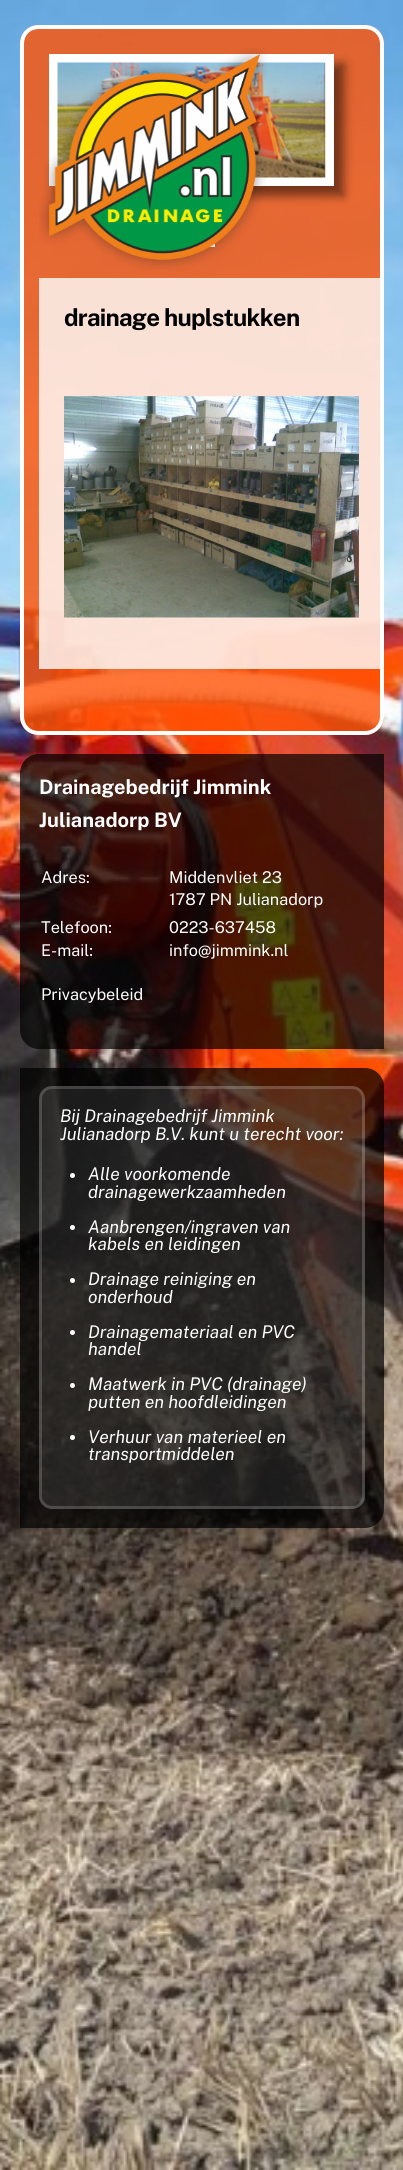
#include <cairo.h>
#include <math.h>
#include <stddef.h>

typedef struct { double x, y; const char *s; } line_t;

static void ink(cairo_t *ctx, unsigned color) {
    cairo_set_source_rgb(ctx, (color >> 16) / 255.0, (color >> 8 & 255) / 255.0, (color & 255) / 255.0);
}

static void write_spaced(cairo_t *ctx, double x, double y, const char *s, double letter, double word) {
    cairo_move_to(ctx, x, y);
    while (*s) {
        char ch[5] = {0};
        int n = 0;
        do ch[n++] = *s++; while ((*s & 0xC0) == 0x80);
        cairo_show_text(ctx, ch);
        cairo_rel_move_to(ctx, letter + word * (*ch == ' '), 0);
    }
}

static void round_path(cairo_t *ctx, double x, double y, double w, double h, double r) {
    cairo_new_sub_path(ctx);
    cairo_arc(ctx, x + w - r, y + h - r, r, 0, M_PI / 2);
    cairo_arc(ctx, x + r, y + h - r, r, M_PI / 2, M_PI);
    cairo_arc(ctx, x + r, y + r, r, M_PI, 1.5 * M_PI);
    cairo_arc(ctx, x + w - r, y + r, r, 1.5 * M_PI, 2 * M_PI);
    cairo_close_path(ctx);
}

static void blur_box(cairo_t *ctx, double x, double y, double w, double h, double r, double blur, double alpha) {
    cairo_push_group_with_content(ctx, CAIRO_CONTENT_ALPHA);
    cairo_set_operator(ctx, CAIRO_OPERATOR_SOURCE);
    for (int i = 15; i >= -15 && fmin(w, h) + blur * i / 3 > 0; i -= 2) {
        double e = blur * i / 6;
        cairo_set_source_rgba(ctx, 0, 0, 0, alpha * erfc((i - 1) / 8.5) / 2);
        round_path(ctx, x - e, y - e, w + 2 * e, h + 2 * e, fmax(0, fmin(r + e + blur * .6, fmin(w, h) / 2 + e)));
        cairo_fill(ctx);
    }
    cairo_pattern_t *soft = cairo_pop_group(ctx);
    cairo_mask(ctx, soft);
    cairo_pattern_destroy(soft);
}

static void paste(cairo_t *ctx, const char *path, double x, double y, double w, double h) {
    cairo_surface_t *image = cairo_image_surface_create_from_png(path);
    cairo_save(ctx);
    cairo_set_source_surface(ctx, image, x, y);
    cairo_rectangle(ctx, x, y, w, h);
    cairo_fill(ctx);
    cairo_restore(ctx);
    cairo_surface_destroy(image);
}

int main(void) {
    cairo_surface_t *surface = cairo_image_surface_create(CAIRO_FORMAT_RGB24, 403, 2170);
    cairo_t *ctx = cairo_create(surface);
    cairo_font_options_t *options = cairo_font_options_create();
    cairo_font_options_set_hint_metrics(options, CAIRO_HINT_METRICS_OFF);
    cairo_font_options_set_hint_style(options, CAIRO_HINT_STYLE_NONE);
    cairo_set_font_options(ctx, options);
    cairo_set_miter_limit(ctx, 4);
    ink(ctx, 0xFFFFFF);
    cairo_paint(ctx);
    paste(ctx, "media/1.png", 0, 0, 403, 2170);
    cairo_set_source_rgba(ctx, 1, 0.325, 0.02, 0.8);
    cairo_new_path(ctx);
    cairo_move_to(ctx, 39, 25);
    cairo_line_to(ctx, 365, 25);
    cairo_curve_to(ctx, 375.5, 25, 384, 33.5, 384, 44);
    cairo_line_to(ctx, 384, 263);
    cairo_line_to(ctx, 20, 263);
    cairo_line_to(ctx, 20, 44);
    cairo_curve_to(ctx, 20, 33.5, 28.5, 25, 39, 25);
    cairo_close_path(ctx);
    cairo_fill(ctx);
    ink(ctx, 0xFFFFFF);
    cairo_set_fill_rule(ctx, CAIRO_FILL_RULE_EVEN_ODD);
    cairo_new_path(ctx);
    cairo_move_to(ctx, 39, 25);
    cairo_line_to(ctx, 365, 25);
    cairo_curve_to(ctx, 375, 25, 384, 33, 384, 44);
    cairo_line_to(ctx, 384, 262);
    cairo_line_to(ctx, 20, 262);
    cairo_line_to(ctx, 20, 44);
    cairo_curve_to(ctx, 20, 33, 28, 25, 39, 25);
    cairo_close_path(ctx);
    cairo_move_to(ctx, 39, 29);
    cairo_line_to(ctx, 365, 29);
    cairo_curve_to(ctx, 373, 29, 380, 35, 380, 44);
    cairo_line_to(ctx, 380, 262);
    cairo_line_to(ctx, 24, 262);
    cairo_line_to(ctx, 24, 44);
    cairo_curve_to(ctx, 24, 35, 30, 29, 39, 29);
    cairo_close_path(ctx);
    cairo_fill(ctx);
    ink(ctx, 0x000000);
    blur_box(ctx, 59, 64, 285, 132, 0, 5, 0.5);
    cairo_rectangle(ctx, 53.5, 58.5, 276, 123);
    ink(ctx, 0xFFFFFF);
    cairo_set_line_width(ctx, 9);
    cairo_stroke(ctx);
    paste(ctx, "media/3.png", 57, 62, 269, 116);
    cairo_rectangle(ctx, 208, 244, 7, 3);
    cairo_fill(ctx);
    cairo_set_source_rgba(ctx, 1, 0.325, 0.02, 0.8);
    cairo_new_path(ctx);
    cairo_move_to(ctx, 20, 263);
    cairo_line_to(ctx, 384, 263);
    cairo_line_to(ctx, 384, 716);
    cairo_curve_to(ctx, 384, 726.5, 375.5, 735, 365, 735);
    cairo_line_to(ctx, 39, 735);
    cairo_curve_to(ctx, 28.5, 735, 20, 726.5, 20, 716);
    cairo_close_path(ctx);
    cairo_fill(ctx);
    ink(ctx, 0xFFFFFF);
    cairo_new_path(ctx);
    cairo_move_to(ctx, 20, 262);
    cairo_line_to(ctx, 384, 262);
    cairo_line_to(ctx, 384, 716);
    cairo_curve_to(ctx, 384, 727, 375, 735, 365, 735);
    cairo_line_to(ctx, 39, 735);
    cairo_curve_to(ctx, 28, 735, 20, 727, 20, 716);
    cairo_close_path(ctx);
    cairo_move_to(ctx, 24, 262);
    cairo_line_to(ctx, 380, 262);
    cairo_line_to(ctx, 380, 716);
    cairo_curve_to(ctx, 380, 725, 373, 731, 365, 731);
    cairo_line_to(ctx, 39, 731);
    cairo_curve_to(ctx, 30, 731, 24, 725, 24, 716);
    cairo_close_path(ctx);
    cairo_fill(ctx);
    paste(ctx, "media/2.png", 39, 48, 228, 222);
    cairo_set_source_rgba(ctx, 1, 1, 1, 0.8);
    cairo_rectangle(ctx, 39, 278, 341, 93);
    cairo_fill(ctx);
    cairo_select_font_face(ctx, "Public Sans", CAIRO_FONT_SLANT_NORMAL, CAIRO_FONT_WEIGHT_BOLD);
    cairo_set_font_size(ctx, 24);
    ink(ctx, 0x000000);
    write_spaced(ctx, 64, 326, "drainage huplstukken", -0.75, 0);
    cairo_set_source_rgba(ctx, 1, 1, 1, 0.8);
    cairo_rectangle(ctx, 39, 371, 341, 298);
    cairo_fill(ctx);
    paste(ctx, "media/4.png", 64, 396, 295, 222);
    cairo_set_source_rgba(ctx, 0, 0, 0, 0.7);
    cairo_new_path(ctx);
    cairo_move_to(ctx, 39, 754);
    cairo_line_to(ctx, 384, 754);
    cairo_line_to(ctx, 384, 1049);
    cairo_line_to(ctx, 39, 1049);
    cairo_curve_to(ctx, 28.5, 1049, 20, 1040.5, 20, 1030);
    cairo_line_to(ctx, 20, 773);
    cairo_curve_to(ctx, 20, 762.5, 28.5, 754, 39, 754);
    cairo_close_path(ctx);
    cairo_fill(ctx);
    cairo_set_font_size(ctx, 20);
    ink(ctx, 0xFFFFFF);
    cairo_move_to(ctx, 39, 794);
    cairo_show_text(ctx, "Drainagebedrijf Jimmink");
    cairo_move_to(ctx, 39, 827);
    cairo_show_text(ctx, "Julianadorp BV");
    cairo_select_font_face(ctx, "Public Sans", CAIRO_FONT_SLANT_NORMAL, CAIRO_FONT_WEIGHT_NORMAL);
    cairo_set_font_size(ctx, 16.25);
    {
        static const line_t items[] = {
            {41, 883, "Adres:"},
            {169, 883, "Middenvliet 23"},
            {169, 905, "1787 PN Julianadorp"},
            {41, 933, "Telefoon:"},
            {41, 956, "E-mail:"},
            {41, 1000, "Privacybeleid"},
            {169, 933, "0223-637458"},
            {169, 956, "info@jimmink.nl"},
        };
        for (size_t i = 0; i < sizeof items / sizeof *items; i++) {
            cairo_move_to(ctx, items[i].x, items[i].y);
            cairo_show_text(ctx, items[i].s);
        }
    }
    cairo_set_source_rgba(ctx, 0, 0, 0, 0.7);
    cairo_new_path(ctx);
    cairo_move_to(ctx, 20, 1068);
    cairo_line_to(ctx, 365, 1068);
    cairo_curve_to(ctx, 375.5, 1068, 384, 1076.5, 384, 1087);
    cairo_line_to(ctx, 384, 1509);
    cairo_curve_to(ctx, 384, 1519.5, 375.5, 1528, 365, 1528);
    cairo_line_to(ctx, 20, 1528);
    cairo_close_path(ctx);
    cairo_fill(ctx);
    cairo_set_source_rgba(ctx, 1, 1, 1, 0.09);
    round_path(ctx, 39, 1086, 326, 423, 13);
    cairo_fill(ctx);
    round_path(ctx, 40.5, 1087.5, 323, 420, 11.5);
    cairo_set_source_rgba(ctx, 1, 1, 1, 0.17);
    cairo_set_line_width(ctx, 3);
    cairo_stroke(ctx);
    cairo_select_font_face(ctx, "Public Sans", CAIRO_FONT_SLANT_ITALIC, CAIRO_FONT_WEIGHT_NORMAL);
    cairo_set_font_size(ctx, 17.5);
    ink(ctx, 0xFFFFFF);
    cairo_move_to(ctx, 60, 1122);
    cairo_show_text(ctx, "Bij Drainagebedrijf Jimmink");
    cairo_move_to(ctx, 60, 1140);
    cairo_show_text(ctx, "Julianadorp B.V. kunt u terecht voor:");
    cairo_new_path(ctx);
    cairo_arc(ctx, 72.5, 1175.5, 2.5, 0, 2 * M_PI);
    cairo_fill(ctx);
    cairo_move_to(ctx, 88, 1180);
    cairo_show_text(ctx, "Alle voorkomende");
    cairo_move_to(ctx, 88, 1198);
    cairo_show_text(ctx, "drainagewerkzaamheden");
    cairo_new_path(ctx);
    cairo_arc(ctx, 72.5, 1227.5, 2.5, 0, 2 * M_PI);
    cairo_fill(ctx);
    cairo_move_to(ctx, 88, 1233);
    cairo_show_text(ctx, "Aanbrengen/ingraven van");
    cairo_move_to(ctx, 88, 1250);
    cairo_show_text(ctx, "kabels en leidingen");
    cairo_new_path(ctx);
    cairo_arc(ctx, 72.5, 1280.5, 2.5, 0, 2 * M_PI);
    cairo_fill(ctx);
    cairo_move_to(ctx, 88, 1285);
    cairo_show_text(ctx, "Drainage reiniging en");
    cairo_move_to(ctx, 88, 1303);
    cairo_show_text(ctx, "onderhoud");
    cairo_new_path(ctx);
    cairo_arc(ctx, 72.5, 1332.5, 2.5, 0, 2 * M_PI);
    cairo_fill(ctx);
    cairo_move_to(ctx, 88, 1338);
    cairo_show_text(ctx, "Drainagemateriaal en PVC");
    cairo_move_to(ctx, 88, 1355);
    cairo_show_text(ctx, "handel");
    cairo_new_path(ctx);
    cairo_arc(ctx, 72.5, 1385.5, 2.5, 0, 2 * M_PI);
    cairo_fill(ctx);
    cairo_move_to(ctx, 88, 1390);
    cairo_show_text(ctx, "Maatwerk in PVC (drainage)");
    cairo_move_to(ctx, 88, 1408);
    cairo_show_text(ctx, "putten en hoofdleidingen");
    cairo_new_path(ctx);
    cairo_arc(ctx, 72.5, 1437.5, 2.5, 0, 2 * M_PI);
    cairo_fill(ctx);
    cairo_move_to(ctx, 88, 1443);
    cairo_show_text(ctx, "Verhuur van materieel en");
    cairo_move_to(ctx, 88, 1460);
    cairo_show_text(ctx, "transportmiddelen");
    cairo_surface_write_to_png(surface, "image.png");
    cairo_font_options_destroy(options);
    cairo_destroy(ctx);
    cairo_surface_destroy(surface);
    return 0;
}
